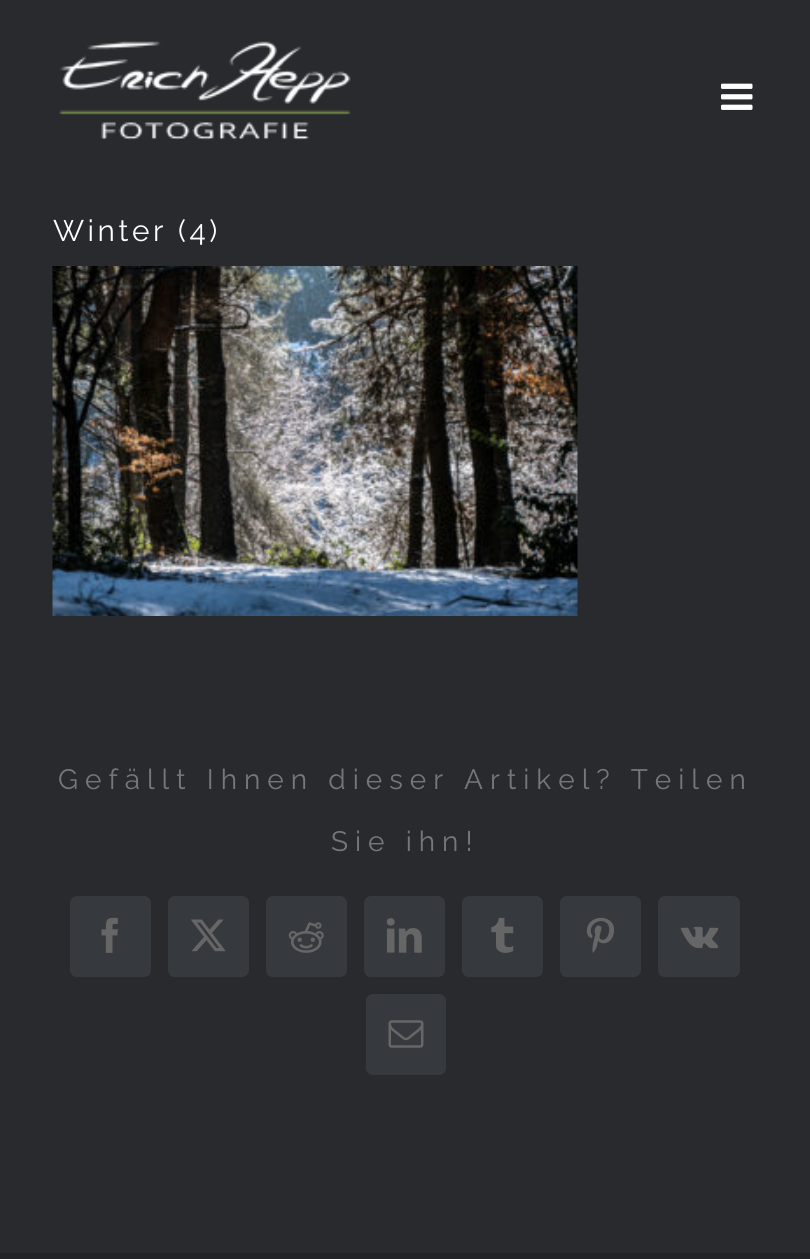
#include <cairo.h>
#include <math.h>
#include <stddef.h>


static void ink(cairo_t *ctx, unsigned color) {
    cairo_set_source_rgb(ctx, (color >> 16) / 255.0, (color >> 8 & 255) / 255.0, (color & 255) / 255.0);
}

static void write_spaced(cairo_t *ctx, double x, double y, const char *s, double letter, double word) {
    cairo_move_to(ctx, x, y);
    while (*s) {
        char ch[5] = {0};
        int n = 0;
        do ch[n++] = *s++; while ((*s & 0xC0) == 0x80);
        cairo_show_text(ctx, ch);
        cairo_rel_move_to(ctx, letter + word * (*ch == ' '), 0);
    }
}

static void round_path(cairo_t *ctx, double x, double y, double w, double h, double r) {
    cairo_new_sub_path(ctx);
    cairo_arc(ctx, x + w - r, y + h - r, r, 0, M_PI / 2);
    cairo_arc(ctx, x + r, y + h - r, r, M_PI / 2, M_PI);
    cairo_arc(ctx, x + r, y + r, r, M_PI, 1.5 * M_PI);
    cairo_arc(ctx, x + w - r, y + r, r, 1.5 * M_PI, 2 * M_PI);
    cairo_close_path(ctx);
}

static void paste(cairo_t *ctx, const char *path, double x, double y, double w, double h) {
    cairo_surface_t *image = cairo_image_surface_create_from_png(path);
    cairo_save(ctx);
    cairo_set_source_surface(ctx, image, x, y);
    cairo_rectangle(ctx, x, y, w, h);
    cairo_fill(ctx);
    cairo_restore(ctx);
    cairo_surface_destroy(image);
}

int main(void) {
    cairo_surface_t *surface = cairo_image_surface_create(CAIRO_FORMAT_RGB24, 810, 1259);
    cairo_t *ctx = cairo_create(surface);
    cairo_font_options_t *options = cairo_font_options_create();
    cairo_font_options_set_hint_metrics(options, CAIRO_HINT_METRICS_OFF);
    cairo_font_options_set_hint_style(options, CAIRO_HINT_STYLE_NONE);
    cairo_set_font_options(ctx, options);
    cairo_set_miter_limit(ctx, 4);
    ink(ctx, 0x282A2D);
    cairo_paint(ctx);
    paste(ctx, "media/1.png", 59, 41, 292, 99);
    paste(ctx, "media/2.png", 721, 83, 32, 27);
    cairo_select_font_face(ctx, "Raleway", CAIRO_FONT_SLANT_NORMAL, CAIRO_FONT_WEIGHT_NORMAL);
    cairo_set_font_size(ctx, 29.75);
    ink(ctx, 0xFFFFFF);
    write_spaced(ctx, 53, 241, "Winter (4)", 3.5, 0);
    paste(ctx, "media/3.png", 52, 266, 526, 350);
    cairo_set_font_size(ctx, 28);
    ink(ctx, 0x777777);
    write_spaced(ctx, 58, 789, "Gefällt Ihnen dieser Artikel? Teilen", 7, 0);
    write_spaced(ctx, 331, 851, "Sie ihn!", 7, 0);
    ink(ctx, 0x36393D);
    round_path(ctx, 71, 897, 79, 79, 6);
    cairo_fill_preserve(ctx);
    cairo_stroke(ctx);
    paste(ctx, "media/4.png", 101, 917, 17, 36);
    round_path(ctx, 169, 897, 79, 79, 6);
    cairo_fill_preserve(ctx);
    cairo_stroke(ctx);
    paste(ctx, "media/5.png", 191, 919, 35, 33);
    round_path(ctx, 267, 897, 79, 79, 6);
    cairo_fill_preserve(ctx);
    cairo_stroke(ctx);
    paste(ctx, "media/6.png", 288, 922, 36, 31);
    round_path(ctx, 365, 897, 79, 79, 6);
    cairo_fill_preserve(ctx);
    cairo_stroke(ctx);
    paste(ctx, "media/7.png", 386, 918, 36, 35);
    round_path(ctx, 463, 897, 79, 79, 6);
    cairo_fill_preserve(ctx);
    cairo_stroke(ctx);
    paste(ctx, "media/8.png", 491, 917, 23, 36);
    round_path(ctx, 561, 897, 79, 79, 6);
    cairo_fill_preserve(ctx);
    cairo_stroke(ctx);
    paste(ctx, "media/9.png", 586, 917, 28, 36);
    round_path(ctx, 659, 897, 80, 79, 6);
    cairo_fill_preserve(ctx);
    cairo_stroke(ctx);
    paste(ctx, "media/10.png", 680, 926, 39, 23);
    round_path(ctx, 367, 995, 78, 79, 6);
    cairo_fill_preserve(ctx);
    cairo_stroke(ctx);
    paste(ctx, "media/11.png", 388, 1020, 36, 28);
    ink(ctx, 0x212326);
    cairo_rectangle(ctx, 0, 1253, 810, 6);
    cairo_fill(ctx);
    cairo_surface_write_to_png(surface, "image.png");
    cairo_font_options_destroy(options);
    cairo_destroy(ctx);
    cairo_surface_destroy(surface);
    return 0;
}
